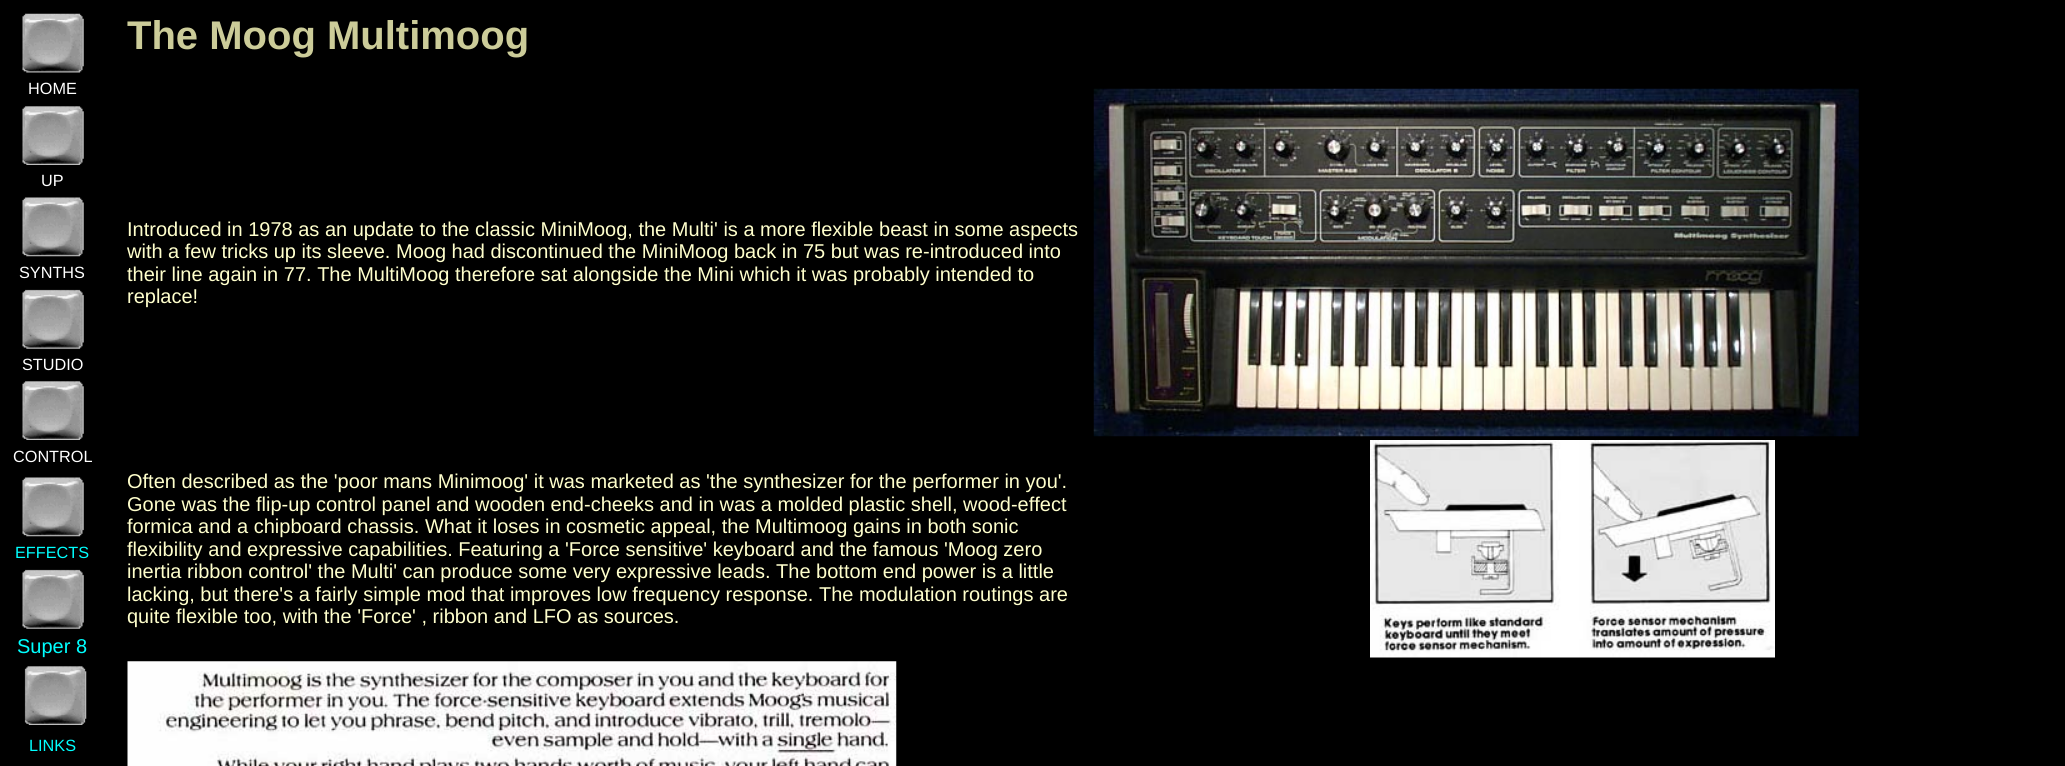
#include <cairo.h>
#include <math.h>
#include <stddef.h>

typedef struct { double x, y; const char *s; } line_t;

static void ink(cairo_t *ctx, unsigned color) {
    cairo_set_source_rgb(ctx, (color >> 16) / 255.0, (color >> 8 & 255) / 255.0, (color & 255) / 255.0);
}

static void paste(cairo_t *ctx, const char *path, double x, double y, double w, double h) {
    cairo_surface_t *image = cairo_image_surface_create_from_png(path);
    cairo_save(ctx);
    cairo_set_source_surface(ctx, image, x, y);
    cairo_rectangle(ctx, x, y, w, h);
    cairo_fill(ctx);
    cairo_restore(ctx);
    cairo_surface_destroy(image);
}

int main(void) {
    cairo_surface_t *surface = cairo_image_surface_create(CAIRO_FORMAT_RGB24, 2065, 766);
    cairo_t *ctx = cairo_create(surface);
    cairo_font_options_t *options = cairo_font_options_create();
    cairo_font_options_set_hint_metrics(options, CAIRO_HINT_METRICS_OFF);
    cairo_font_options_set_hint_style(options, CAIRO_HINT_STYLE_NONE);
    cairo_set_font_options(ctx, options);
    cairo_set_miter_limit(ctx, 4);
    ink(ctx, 0x000000);
    cairo_paint(ctx);
    paste(ctx, "media/1.png", 22, 13, 62, 60);
    cairo_select_font_face(ctx, "Liberation Sans", CAIRO_FONT_SLANT_NORMAL, CAIRO_FONT_WEIGHT_NORMAL);
    cairo_set_font_size(ctx, 16.25);
    ink(ctx, 0xFFFFFF);
    cairo_move_to(ctx, 28, 94);
    cairo_show_text(ctx, "HOME");
    paste(ctx, "media/2.png", 22, 106, 62, 59);
    cairo_move_to(ctx, 41, 186);
    cairo_show_text(ctx, "UP");
    paste(ctx, "media/3.png", 22, 197, 62, 60);
    cairo_move_to(ctx, 19, 278);
    cairo_show_text(ctx, "SYNTHS");
    paste(ctx, "media/4.png", 22, 289, 62, 60);
    cairo_move_to(ctx, 22, 370);
    cairo_show_text(ctx, "STUDIO");
    paste(ctx, "media/2.png", 22, 381, 62, 59);
    cairo_move_to(ctx, 13, 462);
    cairo_show_text(ctx, "CONTROL");
    paste(ctx, "media/3.png", 22, 477, 62, 60);
    ink(ctx, 0x00FFFF);
    cairo_move_to(ctx, 15, 558);
    cairo_show_text(ctx, "EFFECTS");
    paste(ctx, "media/5.png", 22, 569, 62, 60);
    cairo_set_font_size(ctx, 20);
    cairo_move_to(ctx, 17, 653);
    cairo_show_text(ctx, "Super 8");
    paste(ctx, "media/6.png", 24, 666, 63, 59);
    cairo_set_font_size(ctx, 16.25);
    cairo_move_to(ctx, 29, 751);
    cairo_show_text(ctx, "LINKS");
    cairo_select_font_face(ctx, "Liberation Sans", CAIRO_FONT_SLANT_NORMAL, CAIRO_FONT_WEIGHT_BOLD);
    cairo_set_font_size(ctx, 40);
    ink(ctx, 0xCCCC99);
    cairo_move_to(ctx, 127, 49);
    cairo_show_text(ctx, "The Moog Multimoog");
    cairo_select_font_face(ctx, "Liberation Sans", CAIRO_FONT_SLANT_NORMAL, CAIRO_FONT_WEIGHT_NORMAL);
    cairo_set_font_size(ctx, 20);
    ink(ctx, 0xFFFFCC);
    {
        static const line_t items[] = {
            {127, 236, "Introduced in 1978 as an update to the classic MiniMoog, the Multi' is a more flexible beast in some aspects"},
            {127, 258, "with a few tricks up its sleeve. Moog had discontinued the MiniMoog back in 75 but was re-introduced into"},
            {127, 281, "their line again in 77. The MultiMoog therefore sat alongside the Mini which it was probably intended to"},
            {127, 303, "replace!"},
        };
        for (size_t i = 0; i < sizeof items / sizeof *items; i++) {
            cairo_move_to(ctx, items[i].x, items[i].y);
            cairo_show_text(ctx, items[i].s);
        }
    }
    paste(ctx, "media/7.png", 1093, 88, 766, 349);
    {
        static const line_t items[] = {
            {127, 488, "Often described as the 'poor mans Minimoog' it was marketed as 'the synthesizer for the performer in you'."},
            {127, 511, "Gone was the flip-up control panel and wooden end-cheeks and in was a molded plastic shell, wood-effect"},
            {127, 533, "formica and a chipboard chassis. What it loses in cosmetic appeal, the Multimoog gains in both sonic"},
            {127, 556, "flexibility and expressive capabilities. Featuring a 'Force sensitive' keyboard and the famous 'Moog zero"},
            {127, 578, "inertia ribbon control' the Multi' can produce some very expressive leads. The bottom end power is a little"},
            {127, 601, "lacking, but there's a fairly simple mod that improves low frequency response. The modulation routings are"},
            {127, 623, "quite flexible too, with the 'Force' , ribbon and LFO as sources."},
        };
        for (size_t i = 0; i < sizeof items / sizeof *items; i++) {
            cairo_move_to(ctx, items[i].x, items[i].y);
            cairo_show_text(ctx, items[i].s);
        }
    }
    paste(ctx, "media/8.png", 1370, 440, 405, 218);
    paste(ctx, "media/9.png", 127, 661, 770, 105);
    cairo_surface_write_to_png(surface, "image.png");
    cairo_font_options_destroy(options);
    cairo_destroy(ctx);
    cairo_surface_destroy(surface);
    return 0;
}
